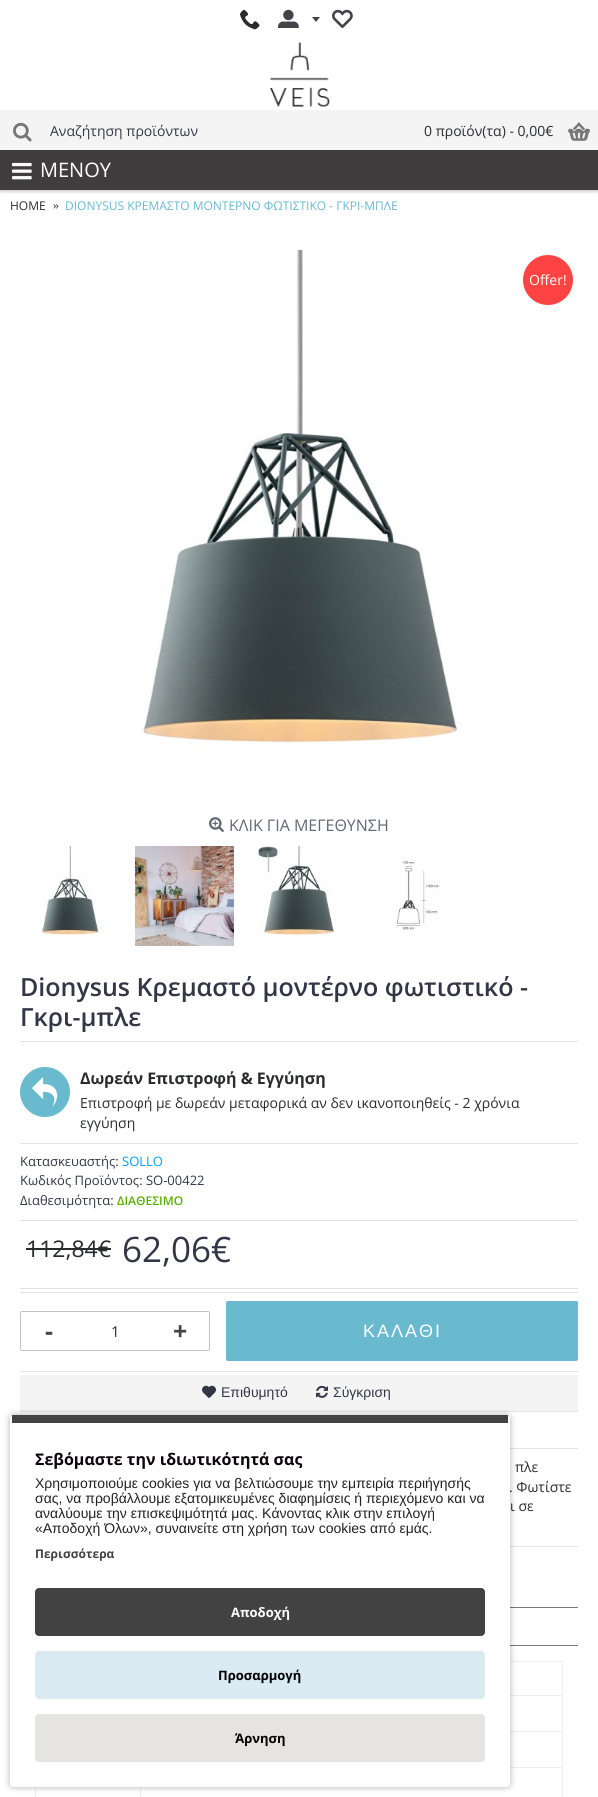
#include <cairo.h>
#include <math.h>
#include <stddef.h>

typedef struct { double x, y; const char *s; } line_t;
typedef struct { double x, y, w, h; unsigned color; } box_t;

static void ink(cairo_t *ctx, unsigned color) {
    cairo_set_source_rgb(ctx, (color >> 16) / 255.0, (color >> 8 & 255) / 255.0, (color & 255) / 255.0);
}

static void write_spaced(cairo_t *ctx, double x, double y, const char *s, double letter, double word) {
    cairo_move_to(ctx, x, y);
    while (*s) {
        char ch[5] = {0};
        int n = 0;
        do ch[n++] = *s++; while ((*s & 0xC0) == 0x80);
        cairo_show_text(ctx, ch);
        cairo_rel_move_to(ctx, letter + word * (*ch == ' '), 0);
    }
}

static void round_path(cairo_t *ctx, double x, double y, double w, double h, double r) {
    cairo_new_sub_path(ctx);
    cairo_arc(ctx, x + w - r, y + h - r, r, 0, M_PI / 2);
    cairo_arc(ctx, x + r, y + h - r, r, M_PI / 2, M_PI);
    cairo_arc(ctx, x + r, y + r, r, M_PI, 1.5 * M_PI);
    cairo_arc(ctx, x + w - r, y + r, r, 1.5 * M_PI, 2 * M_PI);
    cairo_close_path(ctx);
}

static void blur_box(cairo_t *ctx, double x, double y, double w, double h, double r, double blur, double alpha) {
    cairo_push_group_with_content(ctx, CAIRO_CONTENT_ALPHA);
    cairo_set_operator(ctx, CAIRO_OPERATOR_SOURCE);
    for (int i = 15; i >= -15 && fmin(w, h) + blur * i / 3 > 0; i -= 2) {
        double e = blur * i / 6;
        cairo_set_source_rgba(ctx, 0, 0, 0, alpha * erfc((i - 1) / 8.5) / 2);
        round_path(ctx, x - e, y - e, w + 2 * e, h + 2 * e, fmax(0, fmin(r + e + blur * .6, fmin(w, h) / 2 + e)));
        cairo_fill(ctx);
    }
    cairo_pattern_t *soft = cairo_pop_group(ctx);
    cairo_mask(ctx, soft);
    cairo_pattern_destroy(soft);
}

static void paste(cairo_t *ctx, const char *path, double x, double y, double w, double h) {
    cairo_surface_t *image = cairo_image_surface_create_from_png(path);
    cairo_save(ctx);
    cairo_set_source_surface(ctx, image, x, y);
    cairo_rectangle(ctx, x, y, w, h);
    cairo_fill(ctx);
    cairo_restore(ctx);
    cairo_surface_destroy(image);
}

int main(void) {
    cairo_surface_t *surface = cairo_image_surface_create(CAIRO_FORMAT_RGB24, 598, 1797);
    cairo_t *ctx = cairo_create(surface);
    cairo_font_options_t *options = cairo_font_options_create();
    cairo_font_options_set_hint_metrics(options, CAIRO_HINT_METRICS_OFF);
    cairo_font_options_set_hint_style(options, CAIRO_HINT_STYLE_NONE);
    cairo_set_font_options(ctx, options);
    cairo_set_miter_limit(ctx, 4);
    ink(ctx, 0xFFFFFF);
    cairo_paint(ctx);
    cairo_save(ctx);
    cairo_rectangle(ctx, 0, 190, 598, 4);
    cairo_clip(ctx);
    ink(ctx, 0x000000);
    blur_box(ctx, 0, 0, 598, 190, 0, 2.5, 0.4);
    cairo_restore(ctx);
    paste(ctx, "media/1.png", 240, 9, 20, 21);
    paste(ctx, "media/2.png", 278, 9, 21, 19);
    ink(ctx, 0x444349);
    cairo_new_path(ctx);
    cairo_move_to(ctx, 320, 17);
    cairo_line_to(ctx, 312, 17);
    cairo_line_to(ctx, 316, 22);
    cairo_close_path(ctx);
    cairo_fill(ctx);
    paste(ctx, "media/3.png", 332, 9, 21, 19);
    paste(ctx, "media/4.png", 270, 42, 60, 65);
    ink(ctx, 0xF4F4F4);
    cairo_rectangle(ctx, 0, 110, 598, 40);
    cairo_fill(ctx);
    paste(ctx, "media/5.png", 13, 122, 19, 20);
    cairo_select_font_face(ctx, "Open Sans", CAIRO_FONT_SLANT_NORMAL, CAIRO_FONT_WEIGHT_NORMAL);
    cairo_set_font_size(ctx, 14);
    ink(ctx, 0x333745);
    cairo_move_to(ctx, 50, 136);
    cairo_show_text(ctx, "Αναζήτηση προϊόντων");
    ink(ctx, 0x2A2B2E);
    cairo_move_to(ctx, 424, 136);
    cairo_show_text(ctx, "0 προϊόν(τα) - 0,00€");
    paste(ctx, "media/6.png", 568, 122, 22, 19);
    ink(ctx, 0x403D3E);
    cairo_rectangle(ctx, 0, 150, 598, 40);
    cairo_fill(ctx);
    paste(ctx, "media/7.png", 12, 162, 20, 18);
    cairo_set_font_size(ctx, 20);
    ink(ctx, 0xFFFFFF);
    cairo_move_to(ctx, 40, 177);
    cairo_show_text(ctx, "ΜΕΝΟΥ");
    cairo_set_font_size(ctx, 12);
    ink(ctx, 0x2A2B2E);
    cairo_move_to(ctx, 10, 210);
    cairo_show_text(ctx, "HOME");
    cairo_select_font_face(ctx, "Liberation Serif", CAIRO_FONT_SLANT_NORMAL, CAIRO_FONT_WEIGHT_NORMAL);
    cairo_move_to(ctx, 53, 209);
    cairo_show_text(ctx, "»");
    cairo_select_font_face(ctx, "Open Sans", CAIRO_FONT_SLANT_NORMAL, CAIRO_FONT_WEIGHT_NORMAL);
    ink(ctx, 0x69B9CF);
    cairo_move_to(ctx, 65, 210);
    cairo_show_text(ctx, "DIONYSUS ΚΡΕΜΑΣΤΟ ΜΟΝΤΕΡΝΟ ΦΩΤΙΣΤΙΚΟ - ΓΚΡΙ-ΜΠΛΕ");
    paste(ctx, "media/8.png", 139, 250, 321, 500);
    ink(ctx, 0xFF4343);
    cairo_arc(ctx, 548, 280, 25, 0, 2 * M_PI);
    cairo_fill(ctx);
    cairo_set_font_size(ctx, 14);
    ink(ctx, 0xFFFFFF);
    cairo_move_to(ctx, 529, 285);
    cairo_show_text(ctx, "Offer!");
    paste(ctx, "media/9.png", 209, 817, 15, 15);
    cairo_set_font_size(ctx, 16);
    ink(ctx, 0x5F6874);
    cairo_move_to(ctx, 229, 831);
    cairo_show_text(ctx, "ΚΛΙΚ ΓΙΑ ΜΕΓΕΘΥΝΣΗ");
    paste(ctx, "media/10.png", 42, 846, 59, 93);
    paste(ctx, "media/11.png", 135, 846, 99, 100);
    paste(ctx, "media/12.png", 256, 846, 86, 93);
    paste(ctx, "media/13.png", 394, 859, 47, 74);
    ink(ctx, 0xE4E4E4);
    cairo_rectangle(ctx, 20, 1041, 558, 1);
    cairo_fill(ctx);
    cairo_select_font_face(ctx, "Open Sans SemiBold", CAIRO_FONT_SLANT_NORMAL, CAIRO_FONT_WEIGHT_NORMAL);
    cairo_set_font_size(ctx, 25);
    ink(ctx, 0x333745);
    cairo_move_to(ctx, 20, 996);
    cairo_show_text(ctx, "Dionysus Κρεμαστό μοντέρνο φωτιστικό -");
    cairo_move_to(ctx, 20, 1026);
    cairo_show_text(ctx, "Γκρι-μπλε");
    ink(ctx, 0xE4E4E4);
    cairo_rectangle(ctx, 20, 1143, 558, 1);
    cairo_fill(ctx);
    ink(ctx, 0x69B9CF);
    cairo_arc(ctx, 45, 1092, 25, 0, 2 * M_PI);
    cairo_fill(ctx);
    paste(ctx, "media/14.png", 32, 1077, 26, 30);
    cairo_select_font_face(ctx, "Open Sans", CAIRO_FONT_SLANT_NORMAL, CAIRO_FONT_WEIGHT_BOLD);
    cairo_set_font_size(ctx, 16);
    ink(ctx, 0x2A2B2E);
    cairo_move_to(ctx, 80, 1084);
    cairo_show_text(ctx, "Δωρεάν Επιστροφή & Εγγύηση");
    cairo_select_font_face(ctx, "Open Sans", CAIRO_FONT_SLANT_NORMAL, CAIRO_FONT_WEIGHT_NORMAL);
    cairo_set_font_size(ctx, 14);
    cairo_move_to(ctx, 80, 1108);
    cairo_show_text(ctx, "Επιστροφή με δωρεάν μεταφορικά αν δεν ικανοποιηθείς - 2 χρόνια");
    cairo_move_to(ctx, 80, 1128);
    cairo_show_text(ctx, "εγγύηση");
    ink(ctx, 0xE4E4E4);
    cairo_rectangle(ctx, 20, 1220, 558, 1);
    cairo_fill(ctx);
    cairo_set_font_size(ctx, 13);
    ink(ctx, 0x333745);
    cairo_move_to(ctx, 20, 1166);
    cairo_show_text(ctx, "Κατασκευαστής:");
    ink(ctx, 0x009FFF);
    cairo_move_to(ctx, 122, 1166);
    cairo_show_text(ctx, "SOLLO");
    ink(ctx, 0x333745);
    cairo_move_to(ctx, 20, 1185);
    cairo_show_text(ctx, "Κωδικός Προϊόντος: SO-00422");
    cairo_move_to(ctx, 20, 1205);
    cairo_show_text(ctx, "Διαθεσιμότητα:");
    cairo_select_font_face(ctx, "Open Sans SemiBold", CAIRO_FONT_SLANT_NORMAL, CAIRO_FONT_WEIGHT_NORMAL);
    cairo_set_font_size(ctx, 12);
    ink(ctx, 0x5BAF00);
    cairo_move_to(ctx, 117, 1205);
    cairo_show_text(ctx, "ΔΙΑΘΕΣΙΜΟ");
    ink(ctx, 0xE4E4E4);
    cairo_rectangle(ctx, 20, 1288, 558, 1);
    cairo_fill(ctx);
    cairo_select_font_face(ctx, "Open Sans", CAIRO_FONT_SLANT_NORMAL, CAIRO_FONT_WEIGHT_NORMAL);
    cairo_set_font_size(ctx, 23);
    ink(ctx, 0x2A2B2E);
    cairo_move_to(ctx, 26, 1257);
    cairo_show_text(ctx, "112,84€");
    cairo_rectangle(ctx, 26, 1248, 85, 2);
    cairo_fill(ctx);
    cairo_set_font_size(ctx, 35);
    ink(ctx, 0x333745);
    cairo_move_to(ctx, 122, 1262);
    cairo_show_text(ctx, "62,06€");
    ink(ctx, 0xE4E4E4);
    cairo_rectangle(ctx, 20, 1292, 558, 1);
    cairo_fill(ctx);
    cairo_rectangle(ctx, 20, 1371, 558, 1);
    cairo_fill(ctx);
    round_path(ctx, 20.5, 1311.5, 189, 39, 1.5);
    ink(ctx, 0xBDC3C7);
    cairo_set_line_width(ctx, 1);
    cairo_stroke(ctx);
    ink(ctx, 0xFFFFFF);
    cairo_new_path(ctx);
    cairo_move_to(ctx, 22, 1312);
    cairo_line_to(ctx, 77, 1312);
    cairo_line_to(ctx, 77, 1350);
    cairo_line_to(ctx, 22, 1350);
    cairo_curve_to(ctx, 21.5, 1350, 21, 1349.5, 21, 1349);
    cairo_line_to(ctx, 21, 1313);
    cairo_curve_to(ctx, 21, 1312.5, 21.5, 1312, 22, 1312);
    cairo_close_path(ctx);
    cairo_fill(ctx);
    cairo_select_font_face(ctx, "Open Sans", CAIRO_FONT_SLANT_NORMAL, CAIRO_FONT_WEIGHT_BOLD);
    cairo_set_font_size(ctx, 25);
    ink(ctx, 0x444349);
    cairo_move_to(ctx, 45, 1340);
    cairo_show_text(ctx, "-");
    cairo_select_font_face(ctx, "Open Sans", CAIRO_FONT_SLANT_NORMAL, CAIRO_FONT_WEIGHT_NORMAL);
    cairo_set_font_size(ctx, 15);
    ink(ctx, 0x2A2B2E);
    cairo_move_to(ctx, 111, 1337);
    cairo_show_text(ctx, "1");
    ink(ctx, 0xFFFFFF);
    cairo_new_path(ctx);
    cairo_move_to(ctx, 152, 1312);
    cairo_line_to(ctx, 208, 1312);
    cairo_curve_to(ctx, 208.5, 1312, 209, 1312.5, 209, 1313);
    cairo_line_to(ctx, 209, 1349);
    cairo_curve_to(ctx, 209, 1349.5, 208.5, 1350, 208, 1350);
    cairo_line_to(ctx, 152, 1350);
    cairo_close_path(ctx);
    cairo_fill(ctx);
    cairo_select_font_face(ctx, "Open Sans", CAIRO_FONT_SLANT_NORMAL, CAIRO_FONT_WEIGHT_BOLD);
    cairo_set_font_size(ctx, 25);
    ink(ctx, 0x444349);
    cairo_move_to(ctx, 173, 1340);
    cairo_show_text(ctx, "+");
    ink(ctx, 0x69B9CF);
    round_path(ctx, 226, 1301, 352, 60, 2);
    cairo_fill(ctx);
    cairo_select_font_face(ctx, "Liberation Sans", CAIRO_FONT_SLANT_NORMAL, CAIRO_FONT_WEIGHT_NORMAL);
    cairo_set_font_size(ctx, 18);
    ink(ctx, 0xFFFFFF);
    write_spaced(ctx, 363, 1337, "ΚΑΛΑΘΙ", 2, 0);
    ink(ctx, 0xF4F4F4);
    cairo_rectangle(ctx, 20, 1375, 558, 36);
    cairo_fill(ctx);
    ink(ctx, 0xE4E4E4);
    cairo_rectangle(ctx, 20, 1411, 558, 1);
    cairo_fill(ctx);
    paste(ctx, "media/15.png", 202, 1385, 14, 13);
    cairo_set_font_size(ctx, 14);
    ink(ctx, 0x333745);
    cairo_move_to(ctx, 221, 1397);
    cairo_show_text(ctx, "Επιθυμητό");
    paste(ctx, "media/16.png", 316, 1385, 12, 13);
    cairo_move_to(ctx, 333, 1397);
    cairo_show_text(ctx, "Σύγκριση");
    ink(ctx, 0xE4E4E4);
    cairo_rectangle(ctx, 510, 1448, 68, 1);
    cairo_fill(ctx);
    cairo_rectangle(ctx, 510, 1546, 68, 1);
    cairo_fill(ctx);
    cairo_select_font_face(ctx, "Open Sans", CAIRO_FONT_SLANT_NORMAL, CAIRO_FONT_WEIGHT_NORMAL);
    ink(ctx, 0x2A2B2E);
    {
        static const line_t items[] = {
            {515, 1472, "πλε"},
            {509, 1492, ". Φωτίστε"},
            {510, 1511, "ι σε"},
        };
        for (size_t i = 0; i < sizeof items / sizeof *items; i++) {
            cairo_move_to(ctx, items[i].x, items[i].y);
            cairo_show_text(ctx, items[i].s);
        }
    }
    {
        static const box_t items[] = {
            {510, 1607, 68, 1, 0x777777},
            {510, 1645, 68, 1, 0x777777},
            {510, 1661, 53, 1, 0xEEEEEE},
            {35, 1787, 1, 10, 0xEEEEEE},
            {140, 1787, 1, 10, 0xEEEEEE},
            {562, 1661, 1, 136, 0xEEEEEE},
            {510, 1731, 53, 1, 0xEEEEEE},
            {510, 1767, 53, 1, 0xEEEEEE},
            {510, 1695, 53, 1, 0xEEEEEE},
        };
        for (size_t i = 0; i < sizeof items / sizeof *items; i++) {
            ink(ctx, items[i].color);
            cairo_rectangle(ctx, items[i].x, items[i].y, items[i].w, items[i].h);
            cairo_fill(ctx);
        }
    }
    ink(ctx, 0x000000);
    blur_box(ctx, 10, 1415, 500, 372, 4, 3.5, 0.3);
    ink(ctx, 0xFFFFFF);
    round_path(ctx, 10, 1415, 500, 372, 4);
    cairo_fill(ctx);
    ink(ctx, 0x424242);
    cairo_rectangle(ctx, 12, 1415, 496, 8);
    cairo_fill(ctx);
    cairo_select_font_face(ctx, "Open Sans", CAIRO_FONT_SLANT_NORMAL, CAIRO_FONT_WEIGHT_BOLD);
    cairo_set_font_size(ctx, 16);
    ink(ctx, 0x0A010A);
    cairo_move_to(ctx, 35, 1465);
    cairo_show_text(ctx, "Σεβόμαστε την ιδιωτικότητά σας");
    cairo_select_font_face(ctx, "Liberation Sans", CAIRO_FONT_SLANT_NORMAL, CAIRO_FONT_WEIGHT_NORMAL);
    cairo_set_font_size(ctx, 14);
    ink(ctx, 0x212121);
    {
        static const line_t items[] = {
            {35, 1488, "Χρησιμοποιούμε cookies για να βελτιώσουμε την εμπειρία περιήγησής"},
            {35, 1503, "σας, να προβάλλουμε εξατομικευμένες διαφημίσεις ή περιεχόμενο και να"},
            {35, 1518, "αναλύουμε την επισκεψιμότητά μας. Κάνοντας κλικ στην επιλογή"},
            {35, 1533, "«Αποδοχή Όλων», συναινείτε στη χρήση των cookies από εμάς."},
        };
        for (size_t i = 0; i < sizeof items / sizeof *items; i++) {
            cairo_move_to(ctx, items[i].x, items[i].y);
            cairo_show_text(ctx, items[i].s);
        }
    }
    cairo_select_font_face(ctx, "Open Sans", CAIRO_FONT_SLANT_NORMAL, CAIRO_FONT_WEIGHT_BOLD);
    cairo_set_font_size(ctx, 12);
    ink(ctx, 0x424242);
    cairo_move_to(ctx, 35, 1558);
    cairo_show_text(ctx, "Περισσότερα");
    round_path(ctx, 35, 1588, 450, 48, 4);
    cairo_fill(ctx);
    cairo_set_font_size(ctx, 13);
    ink(ctx, 0xFFFFFF);
    cairo_move_to(ctx, 231, 1617);
    cairo_show_text(ctx, "Αποδοχή");
    ink(ctx, 0xDAEBF3);
    round_path(ctx, 35, 1651, 450, 48, 4);
    cairo_fill(ctx);
    ink(ctx, 0x000000);
    cairo_move_to(ctx, 218, 1680);
    cairo_show_text(ctx, "Προσαρμογή");
    ink(ctx, 0xE6E4E3);
    round_path(ctx, 35, 1714, 450, 48, 4);
    cairo_fill(ctx);
    ink(ctx, 0x000000);
    cairo_move_to(ctx, 235, 1743);
    cairo_show_text(ctx, "Άρνηση");
    cairo_surface_write_to_png(surface, "image.png");
    cairo_font_options_destroy(options);
    cairo_destroy(ctx);
    cairo_surface_destroy(surface);
    return 0;
}
